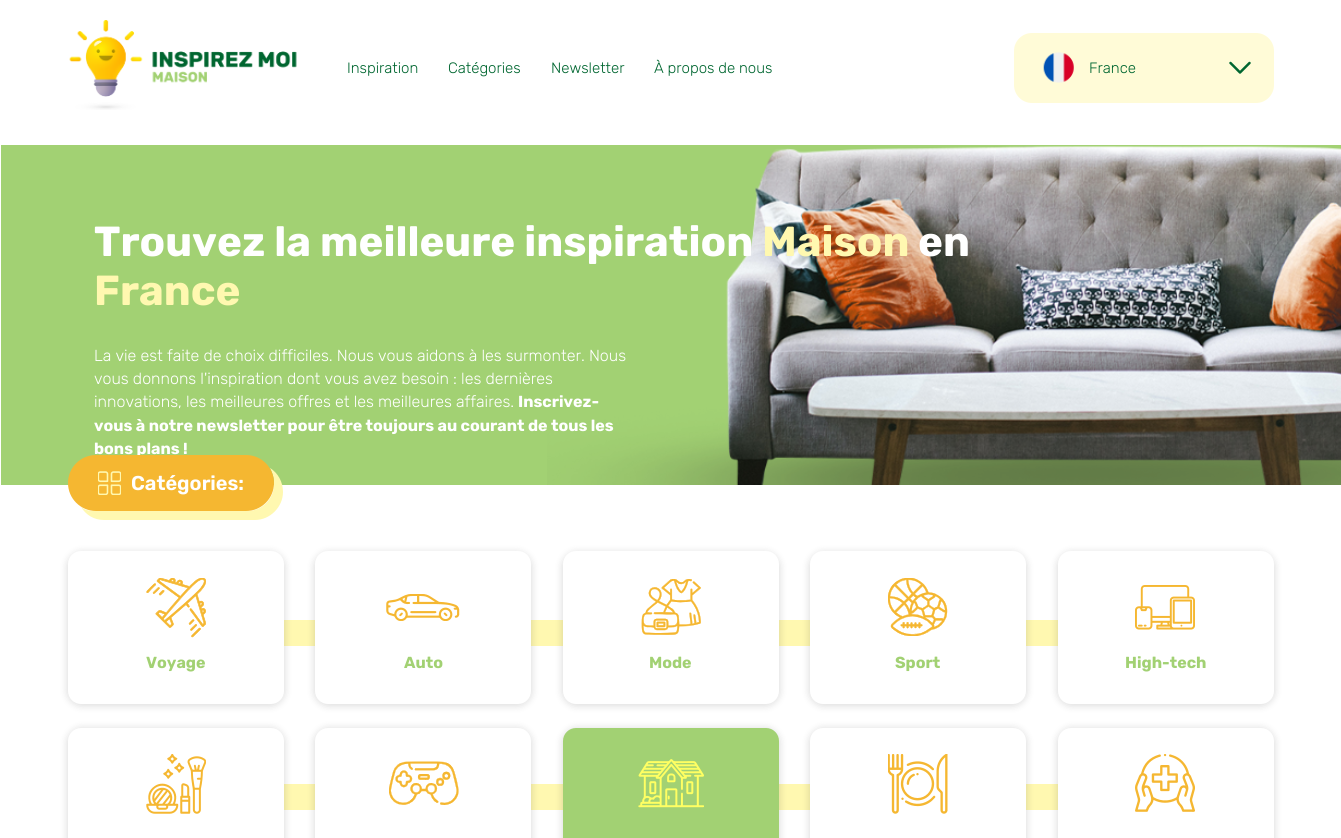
#include <cairo.h>
#include <math.h>
#include <stddef.h>

typedef struct { double x, y; const char *s; } line_t;

static void ink(cairo_t *ctx, unsigned color) {
    cairo_set_source_rgb(ctx, (color >> 16) / 255.0, (color >> 8 & 255) / 255.0, (color & 255) / 255.0);
}

static void round_path(cairo_t *ctx, double x, double y, double w, double h, double r) {
    cairo_new_sub_path(ctx);
    cairo_arc(ctx, x + w - r, y + h - r, r, 0, M_PI / 2);
    cairo_arc(ctx, x + r, y + h - r, r, M_PI / 2, M_PI);
    cairo_arc(ctx, x + r, y + r, r, M_PI, 1.5 * M_PI);
    cairo_arc(ctx, x + w - r, y + r, r, 1.5 * M_PI, 2 * M_PI);
    cairo_close_path(ctx);
}

static void blur_box(cairo_t *ctx, double x, double y, double w, double h, double r, double blur, double alpha) {
    cairo_push_group_with_content(ctx, CAIRO_CONTENT_ALPHA);
    cairo_set_operator(ctx, CAIRO_OPERATOR_SOURCE);
    for (int i = 15; i >= -15 && fmin(w, h) + blur * i / 3 > 0; i -= 2) {
        double e = blur * i / 6;
        cairo_set_source_rgba(ctx, 0, 0, 0, alpha * erfc((i - 1) / 8.5) / 2);
        round_path(ctx, x - e, y - e, w + 2 * e, h + 2 * e, fmax(0, fmin(r + e + blur * .6, fmin(w, h) / 2 + e)));
        cairo_fill(ctx);
    }
    cairo_pattern_t *soft = cairo_pop_group(ctx);
    cairo_mask(ctx, soft);
    cairo_pattern_destroy(soft);
}

static void paste(cairo_t *ctx, const char *path, double x, double y, double w, double h) {
    cairo_surface_t *image = cairo_image_surface_create_from_png(path);
    cairo_save(ctx);
    cairo_set_source_surface(ctx, image, x, y);
    cairo_rectangle(ctx, x, y, w, h);
    cairo_fill(ctx);
    cairo_restore(ctx);
    cairo_surface_destroy(image);
}

int main(void) {
    cairo_surface_t *surface = cairo_image_surface_create(CAIRO_FORMAT_RGB24, 1341, 838);
    cairo_t *ctx = cairo_create(surface);
    cairo_font_options_t *options = cairo_font_options_create();
    cairo_font_options_set_hint_metrics(options, CAIRO_HINT_METRICS_OFF);
    cairo_font_options_set_hint_style(options, CAIRO_HINT_STYLE_NONE);
    cairo_set_font_options(ctx, options);
    cairo_set_miter_limit(ctx, 4);
    ink(ctx, 0xFFFFFF);
    cairo_paint(ctx);
    paste(ctx, "media/1.png", 69, 20, 228, 90);
    cairo_select_font_face(ctx, "Rubik Light", CAIRO_FONT_SLANT_NORMAL, CAIRO_FONT_WEIGHT_NORMAL);
    cairo_set_font_size(ctx, 15);
    ink(ctx, 0x006630);
    {
        static const line_t items[] = {
            {347, 73, "Inspiration"},
            {448, 73, "Catégories"},
            {551, 73, "Newsletter"},
            {654, 73, "À propos de nous"},
        };
        for (size_t i = 0; i < sizeof items / sizeof *items; i++) {
            cairo_move_to(ctx, items[i].x, items[i].y);
            cairo_show_text(ctx, items[i].s);
        }
    }
    ink(ctx, 0xFFFBD7);
    round_path(ctx, 1014, 33, 260, 70, 18);
    cairo_fill(ctx);
    paste(ctx, "media/2.png", 1043, 52, 31, 31);
    ink(ctx, 0x006630);
    cairo_move_to(ctx, 1089, 73);
    cairo_show_text(ctx, "France");
    cairo_new_path(ctx);
    cairo_move_to(ctx, 1230.5, 63);
    cairo_line_to(ctx, 1240, 72.5);
    cairo_line_to(ctx, 1249.5, 63);
    cairo_set_line_width(ctx, 2.5);
    cairo_set_line_cap(ctx, CAIRO_LINE_CAP_ROUND);
    cairo_set_line_join(ctx, CAIRO_LINE_JOIN_ROUND);
    cairo_stroke(ctx);
    ink(ctx, 0xA2D173);
    cairo_rectangle(ctx, 1, 145, 1340, 340);
    cairo_fill(ctx);
    paste(ctx, "media/3.png", 547, 146, 794, 339);
    cairo_select_font_face(ctx, "Rubik", CAIRO_FONT_SLANT_NORMAL, CAIRO_FONT_WEIGHT_BOLD);
    cairo_set_font_size(ctx, 42);
    ink(ctx, 0xFFFFFF);
    cairo_move_to(ctx, 94, 256);
    cairo_show_text(ctx, "Trouvez la meilleure inspiration");
    ink(ctx, 0xFFF8B0);
    cairo_move_to(ctx, 762, 256);
    cairo_show_text(ctx, "Maison");
    ink(ctx, 0xFFFFFF);
    cairo_move_to(ctx, 918, 256);
    cairo_show_text(ctx, "en");
    ink(ctx, 0xFFF8B0);
    cairo_move_to(ctx, 94, 305);
    cairo_show_text(ctx, "France");
    cairo_select_font_face(ctx, "Rubik Light", CAIRO_FONT_SLANT_NORMAL, CAIRO_FONT_WEIGHT_NORMAL);
    cairo_set_font_size(ctx, 16);
    ink(ctx, 0xFFFFFF);
    {
        static const line_t items[] = {
            {94, 361, "La vie est faite de choix difficiles. Nous vous aidons à les surmonter. Nous"},
            {94, 384, "vous donnons l'inspiration dont vous avez besoin : les dernières"},
            {94, 407, "innovations, les meilleures offres et les meilleures affaires."},
        };
        for (size_t i = 0; i < sizeof items / sizeof *items; i++) {
            cairo_move_to(ctx, items[i].x, items[i].y);
            cairo_show_text(ctx, items[i].s);
        }
    }
    cairo_select_font_face(ctx, "Rubik", CAIRO_FONT_SLANT_NORMAL, CAIRO_FONT_WEIGHT_BOLD);
    {
        static const line_t items[] = {
            {518, 407, "Inscrivez-"},
            {94, 431, "vous à notre newsletter pour être toujours au courant de tous les"},
            {94, 454, "bons plans !"},
        };
        for (size_t i = 0; i < sizeof items / sizeof *items; i++) {
            cairo_move_to(ctx, items[i].x, items[i].y);
            cairo_show_text(ctx, items[i].s);
        }
    }
    ink(ctx, 0xFFF8B0);
    cairo_new_path(ctx);
    cairo_move_to(ctx, 81, 507);
    cairo_curve_to(ctx, 86, 515, 94, 520, 104, 520);
    cairo_line_to(ctx, 255, 520);
    cairo_curve_to(ctx, 270, 520, 283, 507, 283, 492);
    cairo_curve_to(ctx, 283, 482, 278, 473, 270, 468);
    cairo_curve_to(ctx, 272, 472, 274, 477, 274, 482);
    cairo_line_to(ctx, 274, 484);
    cairo_curve_to(ctx, 274, 499, 262, 511, 247, 511);
    cairo_line_to(ctx, 94, 511);
    cairo_curve_to(ctx, 89, 511, 85, 510, 81, 507);
    cairo_close_path(ctx);
    cairo_fill(ctx);
    ink(ctx, 0xF5B731);
    round_path(ctx, 68, 455, 206, 56, 28);
    cairo_fill(ctx);
    paste(ctx, "media/4.png", 98, 471, 23, 24);
    cairo_select_font_face(ctx, "Rubik SemiBold", CAIRO_FONT_SLANT_NORMAL, CAIRO_FONT_WEIGHT_NORMAL);
    cairo_set_font_size(ctx, 20);
    ink(ctx, 0xFFFFFF);
    cairo_move_to(ctx, 131, 490);
    cairo_show_text(ctx, "Catégories:");
    ink(ctx, 0xFFF8B0);
    cairo_rectangle(ctx, 284, 620, 774, 26);
    cairo_fill(ctx);
    ink(ctx, 0x000000);
    blur_box(ctx, 68, 553, 216, 152, 13, 4.5, 0.16);
    ink(ctx, 0xFFFFFF);
    round_path(ctx, 68, 551, 216, 153, 13);
    cairo_fill(ctx);
    paste(ctx, "media/5.png", 146, 578, 60, 60);
    cairo_select_font_face(ctx, "Rubik", CAIRO_FONT_SLANT_NORMAL, CAIRO_FONT_WEIGHT_BOLD);
    cairo_set_font_size(ctx, 16);
    ink(ctx, 0xA2D173);
    cairo_move_to(ctx, 146, 668);
    cairo_show_text(ctx, "Voyage");
    ink(ctx, 0x000000);
    blur_box(ctx, 315, 553, 216, 152, 13, 4.5, 0.16);
    ink(ctx, 0xFFFFFF);
    round_path(ctx, 315, 551, 216, 153, 13);
    cairo_fill(ctx);
    paste(ctx, "media/6.png", 386, 594, 74, 27);
    ink(ctx, 0xA2D173);
    cairo_move_to(ctx, 404, 668);
    cairo_show_text(ctx, "Auto");
    ink(ctx, 0x000000);
    blur_box(ctx, 563, 553, 216, 152, 13, 4.5, 0.16);
    ink(ctx, 0xFFFFFF);
    round_path(ctx, 563, 551, 216, 153, 13);
    cairo_fill(ctx);
    paste(ctx, "media/7.png", 641, 579, 60, 56);
    ink(ctx, 0xA2D173);
    cairo_move_to(ctx, 649, 668);
    cairo_show_text(ctx, "Mode");
    ink(ctx, 0x000000);
    blur_box(ctx, 810, 553, 216, 152, 13, 4.5, 0.16);
    ink(ctx, 0xFFFFFF);
    round_path(ctx, 810, 551, 216, 153, 13);
    cairo_fill(ctx);
    paste(ctx, "media/8.png", 888, 578, 60, 58);
    ink(ctx, 0xA2D173);
    cairo_move_to(ctx, 895, 668);
    cairo_show_text(ctx, "Sport");
    ink(ctx, 0x000000);
    blur_box(ctx, 1058, 553, 216, 152, 13, 4.5, 0.16);
    ink(ctx, 0xFFFFFF);
    round_path(ctx, 1058, 551, 216, 153, 13);
    cairo_fill(ctx);
    paste(ctx, "media/9.png", 1135, 585, 60, 45);
    ink(ctx, 0xA2D173);
    cairo_move_to(ctx, 1125, 668);
    cairo_show_text(ctx, "High-tech");
    ink(ctx, 0xFFF8B0);
    cairo_rectangle(ctx, 284, 784, 774, 26);
    cairo_fill(ctx);
    ink(ctx, 0x000000);
    blur_box(ctx, 68, 729, 216, 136, 13, 4.5, 0.16);
    ink(ctx, 0xFFFFFF);
    round_path(ctx, 68, 728, 216, 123, 13);
    cairo_fill(ctx);
    paste(ctx, "media/10.png", 146, 754, 60, 60);
    ink(ctx, 0x000000);
    blur_box(ctx, 315, 729, 216, 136, 13, 4.5, 0.16);
    ink(ctx, 0xFFFFFF);
    round_path(ctx, 315, 728, 216, 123, 13);
    cairo_fill(ctx);
    paste(ctx, "media/11.png", 389, 761, 70, 44);
    ink(ctx, 0x000000);
    blur_box(ctx, 563, 729, 216, 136, 13, 4.5, 0.16);
    ink(ctx, 0xA2D173);
    round_path(ctx, 563, 728, 216, 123, 13);
    cairo_fill(ctx);
    paste(ctx, "media/12.png", 638, 759, 66, 49);
    ink(ctx, 0x000000);
    blur_box(ctx, 810, 729, 216, 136, 13, 4.5, 0.16);
    ink(ctx, 0xFFFFFF);
    round_path(ctx, 810, 728, 216, 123, 13);
    cairo_fill(ctx);
    paste(ctx, "media/13.png", 888, 754, 60, 60);
    ink(ctx, 0x000000);
    blur_box(ctx, 1058, 729, 216, 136, 13, 4.5, 0.16);
    ink(ctx, 0xFFFFFF);
    round_path(ctx, 1058, 728, 216, 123, 13);
    cairo_fill(ctx);
    paste(ctx, "media/14.png", 1135, 754, 60, 58);
    cairo_surface_write_to_png(surface, "image.png");
    cairo_font_options_destroy(options);
    cairo_destroy(ctx);
    cairo_surface_destroy(surface);
    return 0;
}
